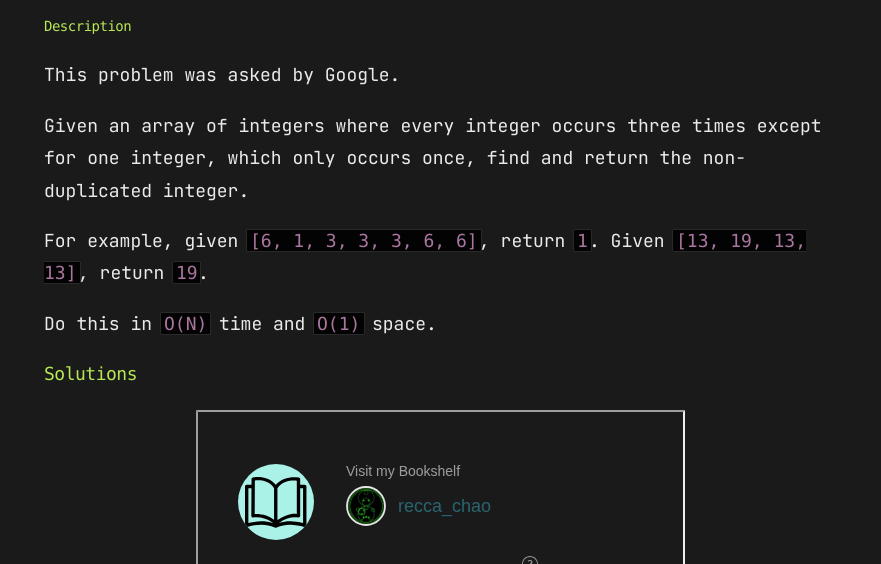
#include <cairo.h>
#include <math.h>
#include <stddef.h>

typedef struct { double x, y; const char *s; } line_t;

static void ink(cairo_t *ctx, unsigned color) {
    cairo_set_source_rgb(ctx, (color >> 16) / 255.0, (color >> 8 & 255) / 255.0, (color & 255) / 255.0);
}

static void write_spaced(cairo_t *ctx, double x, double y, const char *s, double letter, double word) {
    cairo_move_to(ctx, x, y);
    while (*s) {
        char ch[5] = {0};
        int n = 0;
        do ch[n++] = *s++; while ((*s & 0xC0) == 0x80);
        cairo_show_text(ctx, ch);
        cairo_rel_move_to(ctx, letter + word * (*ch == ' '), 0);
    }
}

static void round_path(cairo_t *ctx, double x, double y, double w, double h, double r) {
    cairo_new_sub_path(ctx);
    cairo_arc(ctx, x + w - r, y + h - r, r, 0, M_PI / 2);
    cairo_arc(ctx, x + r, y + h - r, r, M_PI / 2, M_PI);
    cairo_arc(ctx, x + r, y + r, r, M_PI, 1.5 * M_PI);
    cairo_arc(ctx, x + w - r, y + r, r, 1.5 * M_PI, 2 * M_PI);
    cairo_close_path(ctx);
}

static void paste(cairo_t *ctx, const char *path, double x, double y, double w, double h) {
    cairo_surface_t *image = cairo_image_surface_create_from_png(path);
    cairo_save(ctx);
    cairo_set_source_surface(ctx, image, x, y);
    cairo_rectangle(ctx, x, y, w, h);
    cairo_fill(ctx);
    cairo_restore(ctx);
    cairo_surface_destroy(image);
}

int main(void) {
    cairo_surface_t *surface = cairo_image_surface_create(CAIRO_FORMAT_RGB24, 881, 564);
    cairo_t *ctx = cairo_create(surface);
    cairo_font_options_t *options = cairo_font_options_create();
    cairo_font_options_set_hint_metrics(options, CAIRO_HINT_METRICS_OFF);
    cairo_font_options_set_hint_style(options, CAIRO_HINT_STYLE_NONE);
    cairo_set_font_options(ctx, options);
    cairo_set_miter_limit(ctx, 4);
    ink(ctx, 0x1A1A1A);
    cairo_paint(ctx);
    cairo_select_font_face(ctx, "DejaVu Sans Mono", CAIRO_FONT_SLANT_NORMAL, CAIRO_FONT_WEIGHT_NORMAL);
    cairo_set_font_size(ctx, 14);
    ink(ctx, 0xB5E853);
    write_spaced(ctx, 44, 31, "Description", -0.5, 0);
    cairo_select_font_face(ctx, "JetBrains Mono", CAIRO_FONT_SLANT_NORMAL, CAIRO_FONT_WEIGHT_NORMAL);
    cairo_set_font_size(ctx, 18);
    ink(ctx, 0xEAEAEA);
    {
        static const line_t items[] = {
            {44, 81, "This problem was asked by Google."},
            {44, 132, "Given an array of integers where every integer occurs three times except"},
            {44, 164, "for one integer, which only occurs once, find and return the non-"},
            {44, 197, "duplicated integer."},
            {44, 247, "For example, given"},
        };
        for (size_t i = 0; i < sizeof items / sizeof *items; i++) {
            cairo_move_to(ctx, items[i].x, items[i].y);
            cairo_show_text(ctx, items[i].s);
        }
    }
    ink(ctx, 0x030303);
    round_path(ctx, 246, 229, 236, 23, 2);
    cairo_fill(ctx);
    round_path(ctx, 246.5, 229.5, 235, 22, 1.5);
    cairo_set_source_rgba(ctx, 1, 1, 1, 0.15);
    cairo_set_line_width(ctx, 1);
    cairo_stroke(ctx);
    cairo_select_font_face(ctx, "DejaVu Sans Mono", CAIRO_FONT_SLANT_NORMAL, CAIRO_FONT_WEIGHT_NORMAL);
    ink(ctx, 0xAA759F);
    cairo_move_to(ctx, 250, 247);
    cairo_show_text(ctx, "[6, 1, 3, 3, 3, 6, 6]");
    cairo_select_font_face(ctx, "JetBrains Mono", CAIRO_FONT_SLANT_NORMAL, CAIRO_FONT_WEIGHT_NORMAL);
    ink(ctx, 0xEAEAEA);
    cairo_move_to(ctx, 479, 247);
    cairo_show_text(ctx, ", return");
    ink(ctx, 0x030303);
    round_path(ctx, 573, 229, 19, 23, 2);
    cairo_fill(ctx);
    round_path(ctx, 573.5, 229.5, 18, 22, 1.5);
    cairo_set_source_rgba(ctx, 1, 1, 1, 0.15);
    cairo_stroke(ctx);
    cairo_select_font_face(ctx, "DejaVu Sans Mono", CAIRO_FONT_SLANT_NORMAL, CAIRO_FONT_WEIGHT_NORMAL);
    ink(ctx, 0xAA759F);
    cairo_move_to(ctx, 577, 247);
    cairo_show_text(ctx, "1");
    cairo_select_font_face(ctx, "JetBrains Mono", CAIRO_FONT_SLANT_NORMAL, CAIRO_FONT_WEIGHT_NORMAL);
    ink(ctx, 0xEAEAEA);
    cairo_move_to(ctx, 589, 247);
    cairo_show_text(ctx, ". Given");
    ink(ctx, 0x030303);
    cairo_new_path(ctx);
    cairo_move_to(ctx, 674, 229);
    cairo_line_to(ctx, 806, 229);
    cairo_line_to(ctx, 806, 252);
    cairo_line_to(ctx, 674, 252);
    cairo_curve_to(ctx, 673, 252, 672, 251, 672, 250);
    cairo_line_to(ctx, 672, 231);
    cairo_curve_to(ctx, 672, 230, 673, 229, 674, 229);
    cairo_close_path(ctx);
    cairo_fill(ctx);
    cairo_select_font_face(ctx, "DejaVu Sans Mono", CAIRO_FONT_SLANT_NORMAL, CAIRO_FONT_WEIGHT_NORMAL);
    ink(ctx, 0xAA759F);
    cairo_move_to(ctx, 676, 247);
    cairo_show_text(ctx, "[13, 19, 13,");
    ink(ctx, 0x292929);
    cairo_rectangle(ctx, 673, 229, 133, 1);
    cairo_fill(ctx);
    cairo_set_source_rgba(ctx, 1, 1, 1, 0.15);
    cairo_rectangle(ctx, 673, 251, 133, 1);
    cairo_fill(ctx);
    cairo_rectangle(ctx, 672, 230, 1, 21);
    cairo_fill(ctx);
    ink(ctx, 0x030303);
    cairo_new_path(ctx);
    cairo_move_to(ctx, 44, 261);
    cairo_line_to(ctx, 79, 261);
    cairo_curve_to(ctx, 80, 261, 81, 262, 81, 263);
    cairo_line_to(ctx, 81, 282);
    cairo_curve_to(ctx, 81, 283, 80, 284, 79, 284);
    cairo_line_to(ctx, 44, 284);
    cairo_close_path(ctx);
    cairo_fill(ctx);
    ink(ctx, 0xAA759F);
    cairo_move_to(ctx, 44, 279);
    cairo_show_text(ctx, "13]");
    cairo_set_source_rgba(ctx, 1, 1, 1, 0.15);
    cairo_rectangle(ctx, 44, 261, 36, 1);
    cairo_fill(ctx);
    cairo_rectangle(ctx, 80, 262, 1, 21);
    cairo_fill(ctx);
    cairo_rectangle(ctx, 44, 283, 36, 1);
    cairo_fill(ctx);
    cairo_select_font_face(ctx, "JetBrains Mono", CAIRO_FONT_SLANT_NORMAL, CAIRO_FONT_WEIGHT_NORMAL);
    ink(ctx, 0xEAEAEA);
    cairo_move_to(ctx, 78, 279);
    cairo_show_text(ctx, ", return");
    ink(ctx, 0x030303);
    round_path(ctx, 172, 261, 29, 23, 2);
    cairo_fill(ctx);
    round_path(ctx, 172.5, 261.5, 28, 22, 1.5);
    cairo_set_source_rgba(ctx, 1, 1, 1, 0.15);
    cairo_stroke(ctx);
    cairo_select_font_face(ctx, "DejaVu Sans Mono", CAIRO_FONT_SLANT_NORMAL, CAIRO_FONT_WEIGHT_NORMAL);
    ink(ctx, 0xAA759F);
    cairo_move_to(ctx, 176, 279);
    cairo_show_text(ctx, "19");
    cairo_select_font_face(ctx, "JetBrains Mono", CAIRO_FONT_SLANT_NORMAL, CAIRO_FONT_WEIGHT_NORMAL);
    ink(ctx, 0xEAEAEA);
    cairo_move_to(ctx, 198, 279);
    cairo_show_text(ctx, ".");
    cairo_move_to(ctx, 44, 330);
    cairo_show_text(ctx, "Do this in");
    ink(ctx, 0x030303);
    round_path(ctx, 160, 312, 51, 23, 2);
    cairo_fill(ctx);
    round_path(ctx, 160.5, 312.5, 50, 22, 1.5);
    cairo_set_source_rgba(ctx, 1, 1, 1, 0.15);
    cairo_stroke(ctx);
    cairo_select_font_face(ctx, "DejaVu Sans Mono", CAIRO_FONT_SLANT_NORMAL, CAIRO_FONT_WEIGHT_NORMAL);
    ink(ctx, 0xAA759F);
    cairo_move_to(ctx, 164, 330);
    cairo_show_text(ctx, "O(N)");
    cairo_select_font_face(ctx, "JetBrains Mono", CAIRO_FONT_SLANT_NORMAL, CAIRO_FONT_WEIGHT_NORMAL);
    ink(ctx, 0xEAEAEA);
    cairo_move_to(ctx, 219, 330);
    cairo_show_text(ctx, "time and");
    ink(ctx, 0x030303);
    round_path(ctx, 313, 312, 52, 23, 2);
    cairo_fill(ctx);
    round_path(ctx, 313.5, 312.5, 51, 22, 1.5);
    cairo_set_source_rgba(ctx, 1, 1, 1, 0.15);
    cairo_stroke(ctx);
    cairo_select_font_face(ctx, "DejaVu Sans Mono", CAIRO_FONT_SLANT_NORMAL, CAIRO_FONT_WEIGHT_NORMAL);
    ink(ctx, 0xAA759F);
    cairo_move_to(ctx, 317, 330);
    cairo_show_text(ctx, "O(1)");
    cairo_select_font_face(ctx, "JetBrains Mono", CAIRO_FONT_SLANT_NORMAL, CAIRO_FONT_WEIGHT_NORMAL);
    ink(ctx, 0xEAEAEA);
    cairo_move_to(ctx, 372, 330);
    cairo_show_text(ctx, "space.");
    cairo_select_font_face(ctx, "DejaVu Sans Mono", CAIRO_FONT_SLANT_NORMAL, CAIRO_FONT_WEIGHT_NORMAL);
    ink(ctx, 0xB5E853);
    write_spaced(ctx, 44, 380, "Solutions", -0.5, 0);
    ink(ctx, 0x9F9F9F);
    cairo_new_path(ctx);
    cairo_move_to(ctx, 196, 410);
    cairo_line_to(ctx, 685, 410);
    cairo_line_to(ctx, 683, 412);
    cairo_line_to(ctx, 198, 412);
    cairo_close_path(ctx);
    cairo_fill(ctx);
    ink(ctx, 0xEEEEEE);
    cairo_new_path(ctx);
    cairo_move_to(ctx, 685, 410);
    cairo_line_to(ctx, 685, 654);
    cairo_line_to(ctx, 683, 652);
    cairo_line_to(ctx, 683, 412);
    cairo_close_path(ctx);
    cairo_fill(ctx);
    ink(ctx, 0x9F9F9F);
    cairo_new_path(ctx);
    cairo_move_to(ctx, 196, 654);
    cairo_line_to(ctx, 196, 410);
    cairo_line_to(ctx, 198, 412);
    cairo_line_to(ctx, 198, 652);
    cairo_close_path(ctx);
    cairo_fill(ctx);
    paste(ctx, "media/1.png", 238, 464, 300, 100);
    cairo_surface_write_to_png(surface, "image.png");
    cairo_font_options_destroy(options);
    cairo_destroy(ctx);
    cairo_surface_destroy(surface);
    return 0;
}
